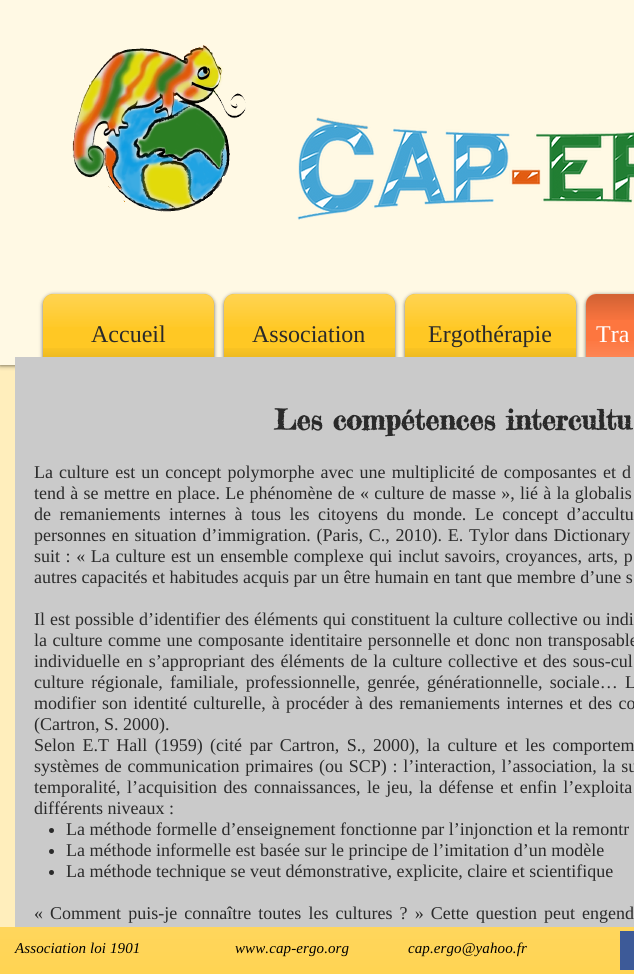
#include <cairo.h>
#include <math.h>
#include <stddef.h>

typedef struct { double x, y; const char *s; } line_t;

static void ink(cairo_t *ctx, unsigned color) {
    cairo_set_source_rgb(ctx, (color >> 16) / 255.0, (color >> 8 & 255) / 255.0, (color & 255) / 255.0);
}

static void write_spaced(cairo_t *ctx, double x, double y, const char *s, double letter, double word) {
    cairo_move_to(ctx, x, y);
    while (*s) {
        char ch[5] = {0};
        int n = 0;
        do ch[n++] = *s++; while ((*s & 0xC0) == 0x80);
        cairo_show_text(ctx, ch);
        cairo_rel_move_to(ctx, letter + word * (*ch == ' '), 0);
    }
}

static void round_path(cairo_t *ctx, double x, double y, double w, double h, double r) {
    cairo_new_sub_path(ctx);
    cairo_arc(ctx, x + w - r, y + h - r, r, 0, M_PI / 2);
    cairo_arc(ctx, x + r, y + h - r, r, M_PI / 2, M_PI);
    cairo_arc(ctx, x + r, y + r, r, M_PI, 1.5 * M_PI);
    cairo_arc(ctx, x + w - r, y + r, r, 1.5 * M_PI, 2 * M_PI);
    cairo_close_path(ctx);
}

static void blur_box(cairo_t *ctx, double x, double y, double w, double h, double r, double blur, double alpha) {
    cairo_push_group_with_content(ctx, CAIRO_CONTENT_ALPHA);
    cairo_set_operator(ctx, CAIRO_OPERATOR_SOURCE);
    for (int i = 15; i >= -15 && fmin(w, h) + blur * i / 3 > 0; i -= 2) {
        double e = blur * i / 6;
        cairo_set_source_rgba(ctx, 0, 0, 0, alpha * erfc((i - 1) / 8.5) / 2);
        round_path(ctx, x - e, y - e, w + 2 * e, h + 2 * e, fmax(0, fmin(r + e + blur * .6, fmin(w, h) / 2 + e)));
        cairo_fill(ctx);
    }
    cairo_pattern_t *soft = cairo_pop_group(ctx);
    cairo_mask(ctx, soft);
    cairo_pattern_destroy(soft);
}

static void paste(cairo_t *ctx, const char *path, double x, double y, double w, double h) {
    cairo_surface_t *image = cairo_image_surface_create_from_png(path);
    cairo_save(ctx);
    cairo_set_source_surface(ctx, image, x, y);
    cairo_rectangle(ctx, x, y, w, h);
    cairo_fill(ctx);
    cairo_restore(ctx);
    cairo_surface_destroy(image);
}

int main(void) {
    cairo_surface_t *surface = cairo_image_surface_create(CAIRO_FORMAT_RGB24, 634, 974);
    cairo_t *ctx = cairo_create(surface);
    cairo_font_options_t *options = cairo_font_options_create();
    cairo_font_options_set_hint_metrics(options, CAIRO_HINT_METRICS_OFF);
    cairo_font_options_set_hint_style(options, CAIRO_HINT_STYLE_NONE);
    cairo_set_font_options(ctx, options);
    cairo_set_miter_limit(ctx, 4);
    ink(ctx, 0xFFEEBC);
    cairo_paint(ctx);
    ink(ctx, 0x000000);
    blur_box(ctx, 0, 0, 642, 365, 0, 2.5, 0.7);
    ink(ctx, 0xFFF9E4);
    cairo_rectangle(ctx, 0, 0, 634, 365);
    cairo_fill(ctx);
    paste(ctx, "media/1.png", 72, 45, 174, 167);
    paste(ctx, "media/2.png", 297, 117, 337, 103);
    ink(ctx, 0x000000);
    blur_box(ctx, 43, 295, 171, 80, 10, 2, 0.6);
    ink(ctx, 0xFFC824);
    round_path(ctx, 43, 294, 171, 80, 10);
    cairo_fill(ctx);
    paste(ctx, "media/3.png", 43, 294, 171, 33);
    paste(ctx, "media/4.png", 43, 348, 171, 9);
    cairo_select_font_face(ctx, "Liberation Serif", CAIRO_FONT_SLANT_NORMAL, CAIRO_FONT_WEIGHT_NORMAL);
    cairo_set_font_size(ctx, 24);
    ink(ctx, 0x2A2A2A);
    cairo_move_to(ctx, 91, 342);
    cairo_show_text(ctx, "Accueil");
    ink(ctx, 0x000000);
    blur_box(ctx, 224, 295, 171, 80, 10, 2, 0.6);
    ink(ctx, 0xFFC824);
    round_path(ctx, 224, 294, 171, 80, 10);
    cairo_fill(ctx);
    paste(ctx, "media/5.png", 224, 294, 171, 33);
    paste(ctx, "media/4.png", 224, 348, 171, 9);
    ink(ctx, 0x2A2A2A);
    cairo_move_to(ctx, 252, 342);
    cairo_show_text(ctx, "Association");
    ink(ctx, 0x000000);
    blur_box(ctx, 405, 295, 171, 80, 10, 2, 0.6);
    ink(ctx, 0xFFC824);
    round_path(ctx, 405, 294, 171, 80, 10);
    cairo_fill(ctx);
    paste(ctx, "media/3.png", 405, 294, 171, 33);
    paste(ctx, "media/4.png", 405, 348, 171, 9);
    ink(ctx, 0x2A2A2A);
    cairo_move_to(ctx, 428, 342);
    cairo_show_text(ctx, "Ergothérapie");
    ink(ctx, 0x000000);
    blur_box(ctx, 586, 295, 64, 80, 10, 2, 0.6);
    ink(ctx, 0xFD763F);
    round_path(ctx, 586, 294, 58, 80, 10);
    cairo_fill(ctx);
    paste(ctx, "media/6.png", 586, 294, 48, 26);
    paste(ctx, "media/7.png", 586, 341, 48, 16);
    ink(ctx, 0xFFFFFF);
    cairo_move_to(ctx, 596, 342);
    cairo_show_text(ctx, "Tra");
    ink(ctx, 0xCACACA);
    cairo_rectangle(ctx, 15, 357, 619, 570);
    cairo_fill(ctx);
    cairo_select_font_face(ctx, "Fredericka the Great", CAIRO_FONT_SLANT_NORMAL, CAIRO_FONT_WEIGHT_BOLD);
    cairo_set_font_size(ctx, 28);
    ink(ctx, 0x2A2A2A);
    cairo_move_to(ctx, 274, 430);
    cairo_show_text(ctx, "Les compétences intercultu");
    cairo_select_font_face(ctx, "Liberation Serif", CAIRO_FONT_SLANT_NORMAL, CAIRO_FONT_WEIGHT_NORMAL);
    cairo_set_font_size(ctx, 18);
    write_spaced(ctx, 34, 478, "La culture est un concept polymorphe avec une multiplicité de composantes et d", 0, 1.6);
    write_spaced(ctx, 34, 499, "tend à se mettre en place. Le phénomène de « culture de masse », lié à la globalis", 0, 0.8);
    write_spaced(ctx, 34, 520, "de remaniements internes à tous les citoyens du monde. Le concept d’accultu", 0, 4);
    write_spaced(ctx, 34, 541, "personnes en situation d’immigration. (Paris, C., 2010). E. Tylor dans Dictionary", 0, 1.25);
    write_spaced(ctx, 34, 562, "suit : « La culture est un ensemble complexe qui inclut savoirs, croyances, arts, p", 0, 1.1);
    cairo_move_to(ctx, 34, 583);
    cairo_show_text(ctx, "autres capacités et habitudes acquis par un être humain en tant que membre d’une s");
    write_spaced(ctx, 34, 625, "Il est possible d’identifier des éléments qui constituent la culture collective ou indi", 0, 0.5);
    write_spaced(ctx, 34, 646, "la culture comme une composante identitaire personnelle et donc non transposable", 0, 1);
    write_spaced(ctx, 34, 667, "individuelle en s’appropriant des éléments de la culture collective et des sous-cul", 0, 1.4);
    write_spaced(ctx, 34, 688, "culture régionale, familiale, professionnelle, genrée, générationnelle, sociale… L", 0, 2.75);
    write_spaced(ctx, 34, 709, "modifier son identité culturelle, à procéder à des remaniements internes et des co", 0, 1.6);
    cairo_move_to(ctx, 34, 730);
    cairo_show_text(ctx, "(Cartron, S. 2000).");
    write_spaced(ctx, 34, 751, "Selon E.T Hall (1959) (cité par Cartron, S., 2000), la culture et les comportem", 0, 2.9);
    write_spaced(ctx, 34, 772, "systèmes de communication primaires (ou SCP) : l’interaction, l’association, la su", 0, 1.25);
    write_spaced(ctx, 34, 793, "temporalité, l’acquisition des connaissances, le jeu, la défense et enfin l’exploita", 0, 2);
    cairo_move_to(ctx, 34, 814);
    cairo_show_text(ctx, "différents niveaux :");
    cairo_new_path(ctx);
    cairo_arc(ctx, 51.5, 830.5, 2.5, 0, 2 * M_PI);
    cairo_fill(ctx);
    cairo_move_to(ctx, 66, 835);
    cairo_show_text(ctx, "La méthode formelle d’enseignement fonctionne par l’injonction et la remontr");
    cairo_new_path(ctx);
    cairo_arc(ctx, 51.5, 851.5, 2.5, 0, 2 * M_PI);
    cairo_fill(ctx);
    cairo_move_to(ctx, 66, 856);
    cairo_show_text(ctx, "La méthode informelle est basée sur le principe de l’imitation d’un modèle");
    cairo_new_path(ctx);
    cairo_arc(ctx, 51.5, 872.5, 2.5, 0, 2 * M_PI);
    cairo_fill(ctx);
    cairo_move_to(ctx, 66, 877);
    cairo_show_text(ctx, "La méthode technique se veut démonstrative, explicite, claire et scientifique");
    write_spaced(ctx, 34, 919, "« Comment puis-je connaître toutes les cultures ? » Cette question peut engend", 0, 2.6);
    ink(ctx, 0xFFC824);
    cairo_rectangle(ctx, 0, 927, 634, 47);
    cairo_fill(ctx);
    paste(ctx, "media/8.png", 0, 927, 634, 47);
    cairo_select_font_face(ctx, "Liberation Serif", CAIRO_FONT_SLANT_ITALIC, CAIRO_FONT_WEIGHT_NORMAL);
    cairo_set_font_size(ctx, 15);
    ink(ctx, 0x000000);
    {
        static const line_t items[] = {
            {15, 953, "Association loi 1901"},
            {235, 953, "www.cap-ergo.org"},
            {408, 953, "cap.ergo@yahoo.fr"},
        };
        for (size_t i = 0; i < sizeof items / sizeof *items; i++) {
            write_spaced(ctx, items[i].x, items[i].y, items[i].s, 0.1, 0);
        }
    }
    ink(ctx, 0x3D5A98);
    cairo_rectangle(ctx, 620, 931, 14, 39);
    cairo_fill(ctx);
    cairo_surface_write_to_png(surface, "image.png");
    cairo_font_options_destroy(options);
    cairo_destroy(ctx);
    cairo_surface_destroy(surface);
    return 0;
}
